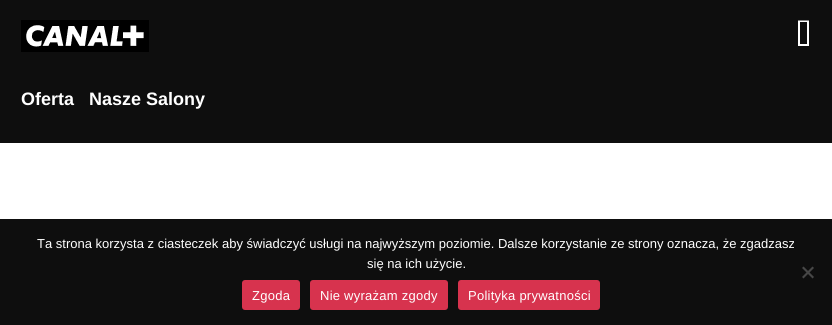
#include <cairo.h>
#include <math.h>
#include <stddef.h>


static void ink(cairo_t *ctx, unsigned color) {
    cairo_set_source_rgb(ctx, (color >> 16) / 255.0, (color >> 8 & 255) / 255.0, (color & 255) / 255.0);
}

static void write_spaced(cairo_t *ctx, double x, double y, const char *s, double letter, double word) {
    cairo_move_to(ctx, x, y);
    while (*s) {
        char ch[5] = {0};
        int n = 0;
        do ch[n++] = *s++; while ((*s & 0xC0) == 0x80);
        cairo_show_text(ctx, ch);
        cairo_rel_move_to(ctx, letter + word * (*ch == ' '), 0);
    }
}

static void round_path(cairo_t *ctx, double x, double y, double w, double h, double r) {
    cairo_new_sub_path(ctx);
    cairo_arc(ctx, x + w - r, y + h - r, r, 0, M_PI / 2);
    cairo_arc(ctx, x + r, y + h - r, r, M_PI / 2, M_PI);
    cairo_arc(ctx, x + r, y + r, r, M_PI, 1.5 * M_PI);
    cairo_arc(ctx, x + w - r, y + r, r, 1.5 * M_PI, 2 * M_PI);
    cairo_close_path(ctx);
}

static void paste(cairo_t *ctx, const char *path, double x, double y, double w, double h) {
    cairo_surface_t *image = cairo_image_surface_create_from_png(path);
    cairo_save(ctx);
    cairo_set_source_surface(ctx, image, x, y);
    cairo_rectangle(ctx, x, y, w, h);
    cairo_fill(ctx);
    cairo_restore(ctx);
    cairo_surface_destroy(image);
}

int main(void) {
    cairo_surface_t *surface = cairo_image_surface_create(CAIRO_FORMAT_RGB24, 832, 325);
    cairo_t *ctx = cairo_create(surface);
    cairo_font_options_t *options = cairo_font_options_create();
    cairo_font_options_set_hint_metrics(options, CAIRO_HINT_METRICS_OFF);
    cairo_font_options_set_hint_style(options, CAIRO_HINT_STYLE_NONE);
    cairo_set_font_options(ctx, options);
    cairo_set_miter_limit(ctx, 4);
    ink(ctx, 0x0E0E0E);
    cairo_paint(ctx);
    paste(ctx, "media/1.png", 21, 20, 128, 32);
    ink(ctx, 0xFFFFFF);
    cairo_new_path(ctx);
    cairo_move_to(ctx, 800, 44);
    cairo_line_to(ctx, 800, 22);
    cairo_line_to(ctx, 807, 22);
    cairo_line_to(ctx, 807, 44);
    cairo_close_path(ctx);
    cairo_move_to(ctx, 798, 46);
    cairo_line_to(ctx, 809, 46);
    cairo_line_to(ctx, 809, 20.5);
    cairo_line_to(ctx, 798, 20.5);
    cairo_close_path(ctx);
    cairo_fill(ctx);
    cairo_select_font_face(ctx, "Liberation Sans", CAIRO_FONT_SLANT_NORMAL, CAIRO_FONT_WEIGHT_BOLD);
    cairo_set_font_size(ctx, 18);
    cairo_move_to(ctx, 21, 105);
    cairo_show_text(ctx, "Oferta");
    cairo_move_to(ctx, 89, 105);
    cairo_show_text(ctx, "Nasze Salony");
    cairo_rectangle(ctx, 0, 143, 832, 76);
    cairo_fill(ctx);
    cairo_select_font_face(ctx, "Liberation Sans", CAIRO_FONT_SLANT_NORMAL, CAIRO_FONT_WEIGHT_NORMAL);
    cairo_set_font_size(ctx, 13);
    cairo_move_to(ctx, 37, 248);
    cairo_show_text(ctx, "Ta strona korzysta z ciasteczek aby świadczyć usługi na najwyższym poziomie. Dalsze korzystanie ze strony oznacza, że zgadzasz");
    cairo_move_to(ctx, 367, 268);
    cairo_show_text(ctx, "się na ich użycie.");
    ink(ctx, 0x474747);
    cairo_new_path(ctx);
    cairo_move_to(ctx, 812.5, 266.5);
    cairo_line_to(ctx, 814, 268);
    cairo_line_to(ctx, 803.5, 278.5);
    cairo_line_to(ctx, 802, 277);
    cairo_close_path(ctx);
    cairo_fill(ctx);
    cairo_new_path(ctx);
    cairo_move_to(ctx, 802, 268);
    cairo_line_to(ctx, 803.5, 266.5);
    cairo_line_to(ctx, 814, 277);
    cairo_line_to(ctx, 812.5, 278.5);
    cairo_close_path(ctx);
    cairo_fill(ctx);
    ink(ctx, 0xD7334E);
    round_path(ctx, 242, 280, 58, 30, 3);
    cairo_fill(ctx);
    ink(ctx, 0xFFFFFF);
    write_spaced(ctx, 252, 300, "Zgoda", 0.25, 0);
    ink(ctx, 0xD7334E);
    round_path(ctx, 310, 280, 138, 30, 3);
    cairo_fill(ctx);
    ink(ctx, 0xFFFFFF);
    write_spaced(ctx, 320, 300, "Nie wyrażam zgody", 0.25, 0);
    ink(ctx, 0xD7334E);
    round_path(ctx, 458, 280, 142, 30, 3);
    cairo_fill(ctx);
    ink(ctx, 0xFFFFFF);
    write_spaced(ctx, 468, 300, "Polityka prywatności", 0.25, 0);
    cairo_surface_write_to_png(surface, "image.png");
    cairo_font_options_destroy(options);
    cairo_destroy(ctx);
    cairo_surface_destroy(surface);
    return 0;
}
